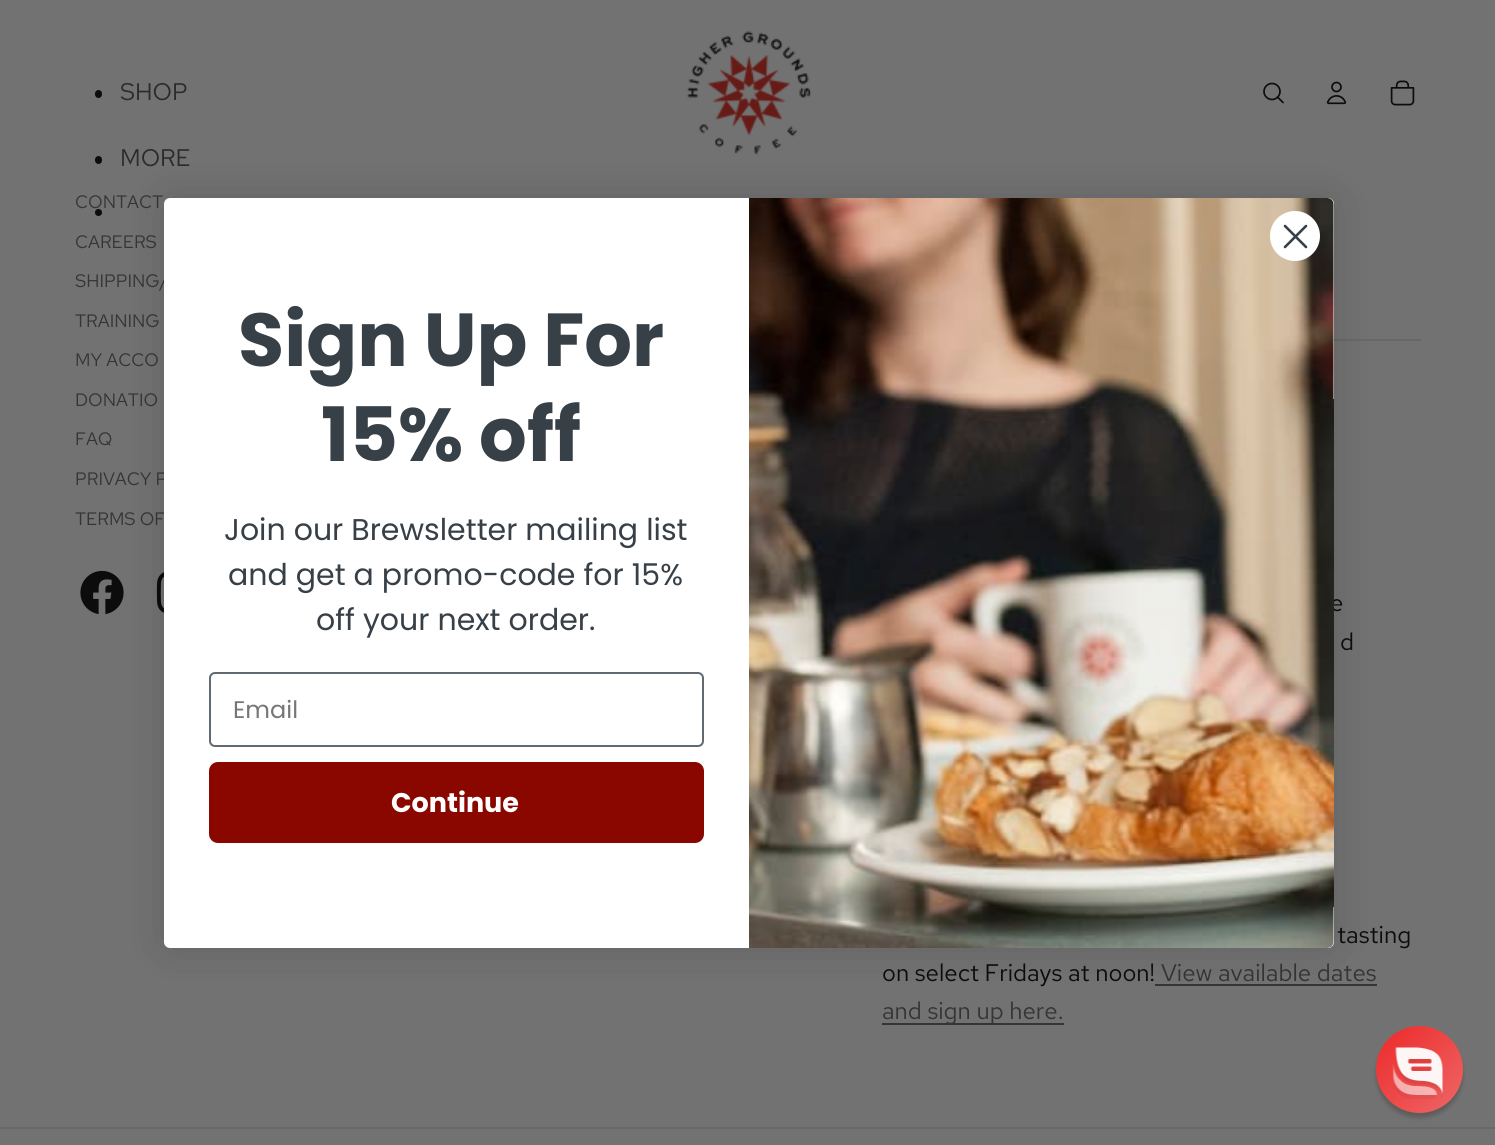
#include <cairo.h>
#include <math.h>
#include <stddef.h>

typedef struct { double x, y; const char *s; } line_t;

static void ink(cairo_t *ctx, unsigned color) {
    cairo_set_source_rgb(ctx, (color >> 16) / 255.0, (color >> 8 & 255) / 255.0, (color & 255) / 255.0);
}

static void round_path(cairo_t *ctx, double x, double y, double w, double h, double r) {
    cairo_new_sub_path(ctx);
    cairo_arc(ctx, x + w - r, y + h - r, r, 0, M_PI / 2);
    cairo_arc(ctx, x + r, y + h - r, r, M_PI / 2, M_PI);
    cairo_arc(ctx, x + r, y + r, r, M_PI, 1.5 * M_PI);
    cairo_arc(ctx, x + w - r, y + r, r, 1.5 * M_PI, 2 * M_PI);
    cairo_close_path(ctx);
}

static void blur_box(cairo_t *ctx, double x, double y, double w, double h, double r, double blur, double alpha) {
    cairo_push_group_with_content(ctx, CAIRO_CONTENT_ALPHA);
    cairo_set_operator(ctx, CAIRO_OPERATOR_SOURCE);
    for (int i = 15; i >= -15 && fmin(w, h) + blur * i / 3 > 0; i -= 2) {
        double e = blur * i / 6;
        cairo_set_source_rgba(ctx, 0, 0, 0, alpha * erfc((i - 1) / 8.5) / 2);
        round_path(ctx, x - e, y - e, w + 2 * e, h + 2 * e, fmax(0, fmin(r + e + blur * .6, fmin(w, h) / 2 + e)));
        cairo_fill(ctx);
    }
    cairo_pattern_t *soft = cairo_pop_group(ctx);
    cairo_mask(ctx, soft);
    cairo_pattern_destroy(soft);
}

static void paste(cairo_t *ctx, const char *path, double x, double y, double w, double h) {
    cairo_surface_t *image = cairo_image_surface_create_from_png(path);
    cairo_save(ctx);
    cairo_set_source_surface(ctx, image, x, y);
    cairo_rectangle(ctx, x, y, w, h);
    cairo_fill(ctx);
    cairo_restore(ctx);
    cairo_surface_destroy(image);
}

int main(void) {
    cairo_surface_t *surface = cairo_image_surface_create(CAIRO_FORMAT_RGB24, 1495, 1145);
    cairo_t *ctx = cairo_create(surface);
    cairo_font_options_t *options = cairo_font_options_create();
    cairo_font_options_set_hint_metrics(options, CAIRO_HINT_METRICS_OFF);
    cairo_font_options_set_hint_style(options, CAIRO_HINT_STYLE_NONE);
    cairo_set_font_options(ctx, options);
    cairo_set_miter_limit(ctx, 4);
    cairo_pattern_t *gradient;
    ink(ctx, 0x727272);
    cairo_paint(ctx);
    ink(ctx, 0x0C0C0C);
    round_path(ctx, 95, 90, 7, 8, 3.5);
    cairo_fill(ctx);
    cairo_select_font_face(ctx, "Red Hat Text", CAIRO_FONT_SLANT_NORMAL, CAIRO_FONT_WEIGHT_NORMAL);
    cairo_set_font_size(ctx, 24);
    ink(ctx, 0x2B2B2B);
    cairo_move_to(ctx, 120, 100);
    cairo_show_text(ctx, "SHOP");
    ink(ctx, 0x0C0C0C);
    round_path(ctx, 95, 156, 7, 8, 3.5);
    cairo_fill(ctx);
    ink(ctx, 0x2B2B2B);
    cairo_move_to(ctx, 120, 166);
    cairo_show_text(ctx, "MORE");
    ink(ctx, 0x0C0C0C);
    cairo_new_path(ctx);
    cairo_arc(ctx, 98.5, 212.5, 3.5, 0, 2 * M_PI);
    cairo_fill(ctx);
    paste(ctx, "media/1.png", 686, 31, 125, 124);
    cairo_arc(ctx, 1272, 91.5, 8, 0, 2 * M_PI);
    cairo_set_line_width(ctx, 1.7);
    cairo_stroke(ctx);
    cairo_new_path(ctx);
    cairo_move_to(ctx, 1277.5, 97);
    cairo_line_to(ctx, 1283, 102.5);
    cairo_set_line_cap(ctx, CAIRO_LINE_CAP_ROUND);
    cairo_set_line_join(ctx, CAIRO_LINE_JOIN_ROUND);
    cairo_stroke(ctx);
    paste(ctx, "media/2.png", 1326, 81, 21, 24);
    paste(ctx, "media/3.png", 1390, 80, 25, 26);
    cairo_set_font_size(ctx, 18);
    ink(ctx, 0x353535);
    {
        static const line_t items[] = {
            {75, 208, "CONTACT"},
            {75, 248, "CAREERS"},
            {75, 287, "SHIPPING/"},
            {75, 327, "TRAINING"},
            {75, 366, "MY ACCO"},
            {75, 406, "DONATIO"},
            {75, 445, "FAQ"},
            {75, 485, "PRIVACY P"},
            {75, 525, "TERMS OF"},
        };
        for (size_t i = 0; i < sizeof items / sizeof *items; i++) {
            cairo_move_to(ctx, items[i].x, items[i].y);
            cairo_show_text(ctx, items[i].s);
        }
    }
    paste(ctx, "media/4.png", 80, 570, 44, 45);
    paste(ctx, "media/5.png", 156, 572, 8, 41);
    ink(ctx, 0x686868);
    cairo_rectangle(ctx, 1334, 339, 87, 2);
    cairo_fill(ctx);
    cairo_set_font_size(ctx, 24);
    ink(ctx, 0x0C0C0C);
    {
        static const line_t items[] = {
            {1330, 611, "e"},
            {1340, 650, "d"},
            {1337, 943, "tasting"},
            {882, 981, "on select Fridays at noon!"},
        };
        for (size_t i = 0; i < sizeof items / sizeof *items; i++) {
            cairo_move_to(ctx, items[i].x, items[i].y);
            cairo_show_text(ctx, items[i].s);
        }
    }
    ink(ctx, 0x353535);
    cairo_move_to(ctx, 1161, 981);
    cairo_show_text(ctx, "View available dates");
    cairo_rectangle(ctx, 1155, 984, 222, 2);
    cairo_fill(ctx);
    cairo_rectangle(ctx, 882, 1023, 182, 2);
    cairo_fill(ctx);
    cairo_move_to(ctx, 882, 1019);
    cairo_show_text(ctx, "and sign up here.");
    ink(ctx, 0x686868);
    cairo_rectangle(ctx, 0, 1127, 1495, 2);
    cairo_fill(ctx);
    ink(ctx, 0x000000);
    blur_box(ctx, 164, 198, 1170, 750, 6, 22.5, 0.15);
    ink(ctx, 0xFFFFFF);
    round_path(ctx, 164, 198, 1170, 750, 6);
    cairo_fill(ctx);
    paste(ctx, "media/6.png", 749, 198, 585, 750);
    cairo_arc(ctx, 1295, 236, 25, 0, 2 * M_PI);
    cairo_fill(ctx);
    cairo_new_path(ctx);
    cairo_move_to(ctx, 1285, 226);
    cairo_line_to(ctx, 1306, 247);
    cairo_move_to(ctx, 1285, 247);
    cairo_line_to(ctx, 1306, 226);
    cairo_close_path(ctx);
    ink(ctx, 0x373F47);
    cairo_set_line_width(ctx, 2.6);
    cairo_stroke(ctx);
    cairo_select_font_face(ctx, "Poppins", CAIRO_FONT_SLANT_NORMAL, CAIRO_FONT_WEIGHT_BOLD);
    cairo_set_font_size(ctx, 75);
    cairo_move_to(ctx, 238, 366);
    cairo_show_text(ctx, "Sign Up For");
    cairo_move_to(ctx, 321, 461);
    cairo_show_text(ctx, "15% off");
    cairo_select_font_face(ctx, "Poppins", CAIRO_FONT_SLANT_NORMAL, CAIRO_FONT_WEIGHT_NORMAL);
    cairo_set_font_size(ctx, 30);
    {
        static const line_t items[] = {
            {224, 540, "Join our Brewsletter mailing list"},
            {228, 585, "and get a promo-code for 15%"},
            {316, 630, "off your next order."},
        };
        for (size_t i = 0; i < sizeof items / sizeof *items; i++) {
            cairo_move_to(ctx, items[i].x, items[i].y);
            cairo_show_text(ctx, items[i].s);
        }
    }
    round_path(ctx, 210, 673, 493, 73, 5);
    ink(ctx, 0x606A72);
    cairo_set_line_width(ctx, 2);
    cairo_set_line_cap(ctx, CAIRO_LINE_CAP_BUTT);
    cairo_set_line_join(ctx, CAIRO_LINE_JOIN_MITER);
    cairo_stroke(ctx);
    cairo_set_font_size(ctx, 24);
    ink(ctx, 0x767676);
    cairo_move_to(ctx, 233, 718);
    cairo_show_text(ctx, "Email");
    ink(ctx, 0x8A0700);
    round_path(ctx, 209, 762, 495, 81, 9);
    cairo_fill(ctx);
    cairo_select_font_face(ctx, "Poppins", CAIRO_FONT_SLANT_NORMAL, CAIRO_FONT_WEIGHT_BOLD);
    cairo_set_font_size(ctx, 27);
    ink(ctx, 0xFFFFFF);
    cairo_move_to(ctx, 391, 812);
    cairo_show_text(ctx, "Continue");
    ink(ctx, 0x060606);
    blur_box(ctx, 1376, 1031, 87, 87, 43.5, 2, 0.2);
    gradient = cairo_pattern_create_linear(1376, 1026, 1463, 1113);
    cairo_pattern_add_color_stop_rgba(gradient, 0, 0.925, 0.161, 0.161, 1);
    cairo_pattern_add_color_stop_rgba(gradient, 1, 0.937, 0.404, 0.404, 1);
    cairo_set_source(ctx, gradient);
    cairo_pattern_destroy(gradient);
    cairo_arc(ctx, 1419.5, 1069.5, 43.5, 0, 2 * M_PI);
    cairo_fill(ctx);
    paste(ctx, "media/7.png", 1392, 1047, 51, 52);
    cairo_surface_write_to_png(surface, "image.png");
    cairo_font_options_destroy(options);
    cairo_destroy(ctx);
    cairo_surface_destroy(surface);
    return 0;
}
